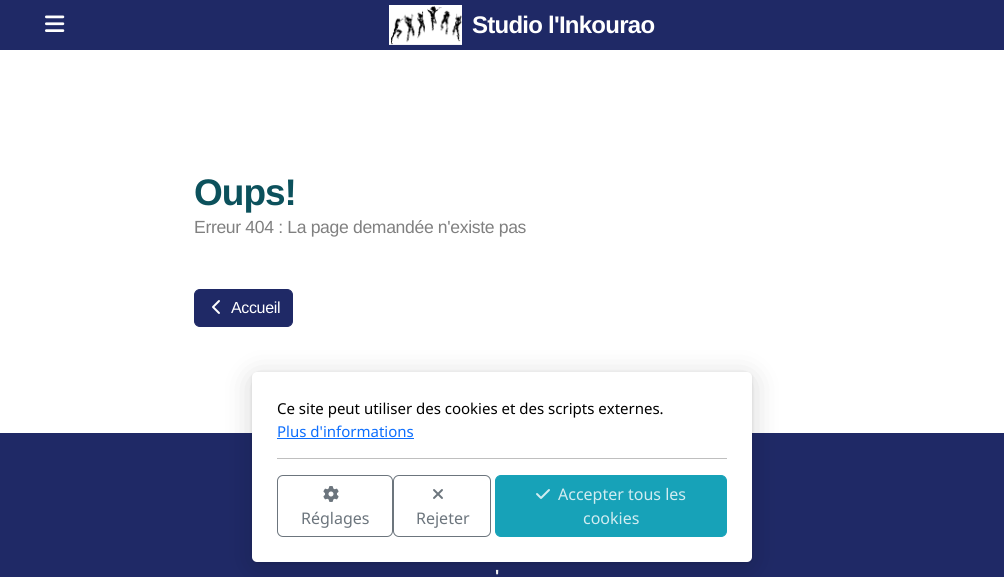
#include <cairo.h>
#include <math.h>
#include <stddef.h>


static void ink(cairo_t *ctx, unsigned color) {
    cairo_set_source_rgb(ctx, (color >> 16) / 255.0, (color >> 8 & 255) / 255.0, (color & 255) / 255.0);
}

static void write_spaced(cairo_t *ctx, double x, double y, const char *s, double letter, double word) {
    cairo_move_to(ctx, x, y);
    while (*s) {
        char ch[5] = {0};
        int n = 0;
        do ch[n++] = *s++; while ((*s & 0xC0) == 0x80);
        cairo_show_text(ctx, ch);
        cairo_rel_move_to(ctx, letter + word * (*ch == ' '), 0);
    }
}

static void round_path(cairo_t *ctx, double x, double y, double w, double h, double r) {
    cairo_new_sub_path(ctx);
    cairo_arc(ctx, x + w - r, y + h - r, r, 0, M_PI / 2);
    cairo_arc(ctx, x + r, y + h - r, r, M_PI / 2, M_PI);
    cairo_arc(ctx, x + r, y + r, r, M_PI, 1.5 * M_PI);
    cairo_arc(ctx, x + w - r, y + r, r, 1.5 * M_PI, 2 * M_PI);
    cairo_close_path(ctx);
}

static void blur_box(cairo_t *ctx, double x, double y, double w, double h, double r, double blur, double alpha) {
    cairo_push_group_with_content(ctx, CAIRO_CONTENT_ALPHA);
    cairo_set_operator(ctx, CAIRO_OPERATOR_SOURCE);
    for (int i = 15; i >= -15 && fmin(w, h) + blur * i / 3 > 0; i -= 2) {
        double e = blur * i / 6;
        cairo_set_source_rgba(ctx, 0, 0, 0, alpha * erfc((i - 1) / 8.5) / 2);
        round_path(ctx, x - e, y - e, w + 2 * e, h + 2 * e, fmax(0, fmin(r + e + blur * .6, fmin(w, h) / 2 + e)));
        cairo_fill(ctx);
    }
    cairo_pattern_t *soft = cairo_pop_group(ctx);
    cairo_mask(ctx, soft);
    cairo_pattern_destroy(soft);
}

static void paste(cairo_t *ctx, const char *path, double x, double y, double w, double h) {
    cairo_surface_t *image = cairo_image_surface_create_from_png(path);
    cairo_save(ctx);
    cairo_set_source_surface(ctx, image, x, y);
    cairo_rectangle(ctx, x, y, w, h);
    cairo_fill(ctx);
    cairo_restore(ctx);
    cairo_surface_destroy(image);
}

int main(void) {
    cairo_surface_t *surface = cairo_image_surface_create(CAIRO_FORMAT_RGB24, 1004, 577);
    cairo_t *ctx = cairo_create(surface);
    cairo_font_options_t *options = cairo_font_options_create();
    cairo_font_options_set_hint_metrics(options, CAIRO_HINT_METRICS_OFF);
    cairo_font_options_set_hint_style(options, CAIRO_HINT_STYLE_NONE);
    cairo_set_font_options(ctx, options);
    cairo_set_miter_limit(ctx, 4);
    ink(ctx, 0xFFFFFF);
    cairo_paint(ctx);
    ink(ctx, 0x1F2966);
    cairo_rectangle(ctx, 0, 0, 1004, 50);
    cairo_fill(ctx);
    paste(ctx, "media/1.png", 45, 15, 20, 17);
    paste(ctx, "media/2.png", 389, 5, 73, 40);
    cairo_select_font_face(ctx, "Liberation Sans", CAIRO_FONT_SLANT_NORMAL, CAIRO_FONT_WEIGHT_BOLD);
    cairo_set_font_size(ctx, 24);
    ink(ctx, 0xFFFFFF);
    write_spaced(ctx, 472, 33, "Studio l'Inkourao", -0.75, 0);
    cairo_set_font_size(ctx, 37);
    ink(ctx, 0x0C515C);
    write_spaced(ctx, 194, 205, "Oups!", -1, 0);
    cairo_select_font_face(ctx, "Liberation Sans", CAIRO_FONT_SLANT_NORMAL, CAIRO_FONT_WEIGHT_NORMAL);
    cairo_set_font_size(ctx, 17.6);
    ink(ctx, 0x808080);
    write_spaced(ctx, 194, 233, "Erreur 404 : La page demandée n'existe pas", -0.35, 0);
    ink(ctx, 0x1F2966);
    round_path(ctx, 194.5, 289.5, 98, 37, 5.5);
    cairo_fill_preserve(ctx);
    cairo_set_line_width(ctx, 1);
    cairo_stroke(ctx);
    paste(ctx, "media/3.png", 212, 300, 8, 14);
    cairo_set_font_size(ctx, 16);
    ink(ctx, 0xFFFFFF);
    write_spaced(ctx, 231, 313, "Accueil", -0.35, 0);
    ink(ctx, 0x1F2966);
    cairo_rectangle(ctx, 0, 433, 1004, 144);
    cairo_fill(ctx);
    cairo_select_font_face(ctx, "Liberation Sans", CAIRO_FONT_SLANT_NORMAL, CAIRO_FONT_WEIGHT_BOLD);
    cairo_set_font_size(ctx, 17.6);
    ink(ctx, 0xFFFFFF);
    write_spaced(ctx, 495, 582, "'", -0.35, 0);
    ink(ctx, 0x000000);
    blur_box(ctx, 252, 377, 500, 190, 5, 15, 0.16);
    blur_box(ctx, 252, 373, 500, 190, 5, 1.5, 0.1);
    ink(ctx, 0xFFFFFF);
    round_path(ctx, 252, 372, 500, 190, 5);
    cairo_fill(ctx);
    cairo_select_font_face(ctx, "Noto Sans", CAIRO_FONT_SLANT_NORMAL, CAIRO_FONT_WEIGHT_NORMAL);
    cairo_set_font_size(ctx, 15);
    ink(ctx, 0x000000);
    cairo_move_to(ctx, 277, 414);
    cairo_show_text(ctx, "Ce site peut utiliser des cookies et des scripts externes.");
    ink(ctx, 0x0D6EFD);
    cairo_move_to(ctx, 277, 437);
    cairo_show_text(ctx, "Plus d'informations");
    cairo_rectangle(ctx, 277, 438, 137, 1);
    cairo_fill(ctx);
    ink(ctx, 0xBFBFBF);
    cairo_rectangle(ctx, 277, 458, 450, 1);
    cairo_fill(ctx);
    round_path(ctx, 277.5, 475.5, 115, 61, 5.5);
    ink(ctx, 0x6C757D);
    cairo_stroke(ctx);
    paste(ctx, "media/4.png", 323, 486, 16, 16);
    cairo_set_font_size(ctx, 16);
    cairo_move_to(ctx, 301, 524);
    cairo_show_text(ctx, "Réglages");
    round_path(ctx, 393.5, 475.5, 97, 61, 5.5);
    cairo_stroke(ctx);
    paste(ctx, "media/5.png", 433, 489, 10, 10);
    cairo_move_to(ctx, 416, 524);
    cairo_show_text(ctx, "Rejeter");
    ink(ctx, 0x17A2B8);
    round_path(ctx, 495.5, 475.5, 231, 61, 5.5);
    cairo_fill_preserve(ctx);
    cairo_stroke(ctx);
    paste(ctx, "media/6.png", 536, 489, 14, 10);
    ink(ctx, 0xD1ECF1);
    cairo_move_to(ctx, 558, 500);
    cairo_show_text(ctx, "Accepter tous les");
    cairo_move_to(ctx, 583, 524);
    cairo_show_text(ctx, "cookies");
    cairo_surface_write_to_png(surface, "image.png");
    cairo_font_options_destroy(options);
    cairo_destroy(ctx);
    cairo_surface_destroy(surface);
    return 0;
}
